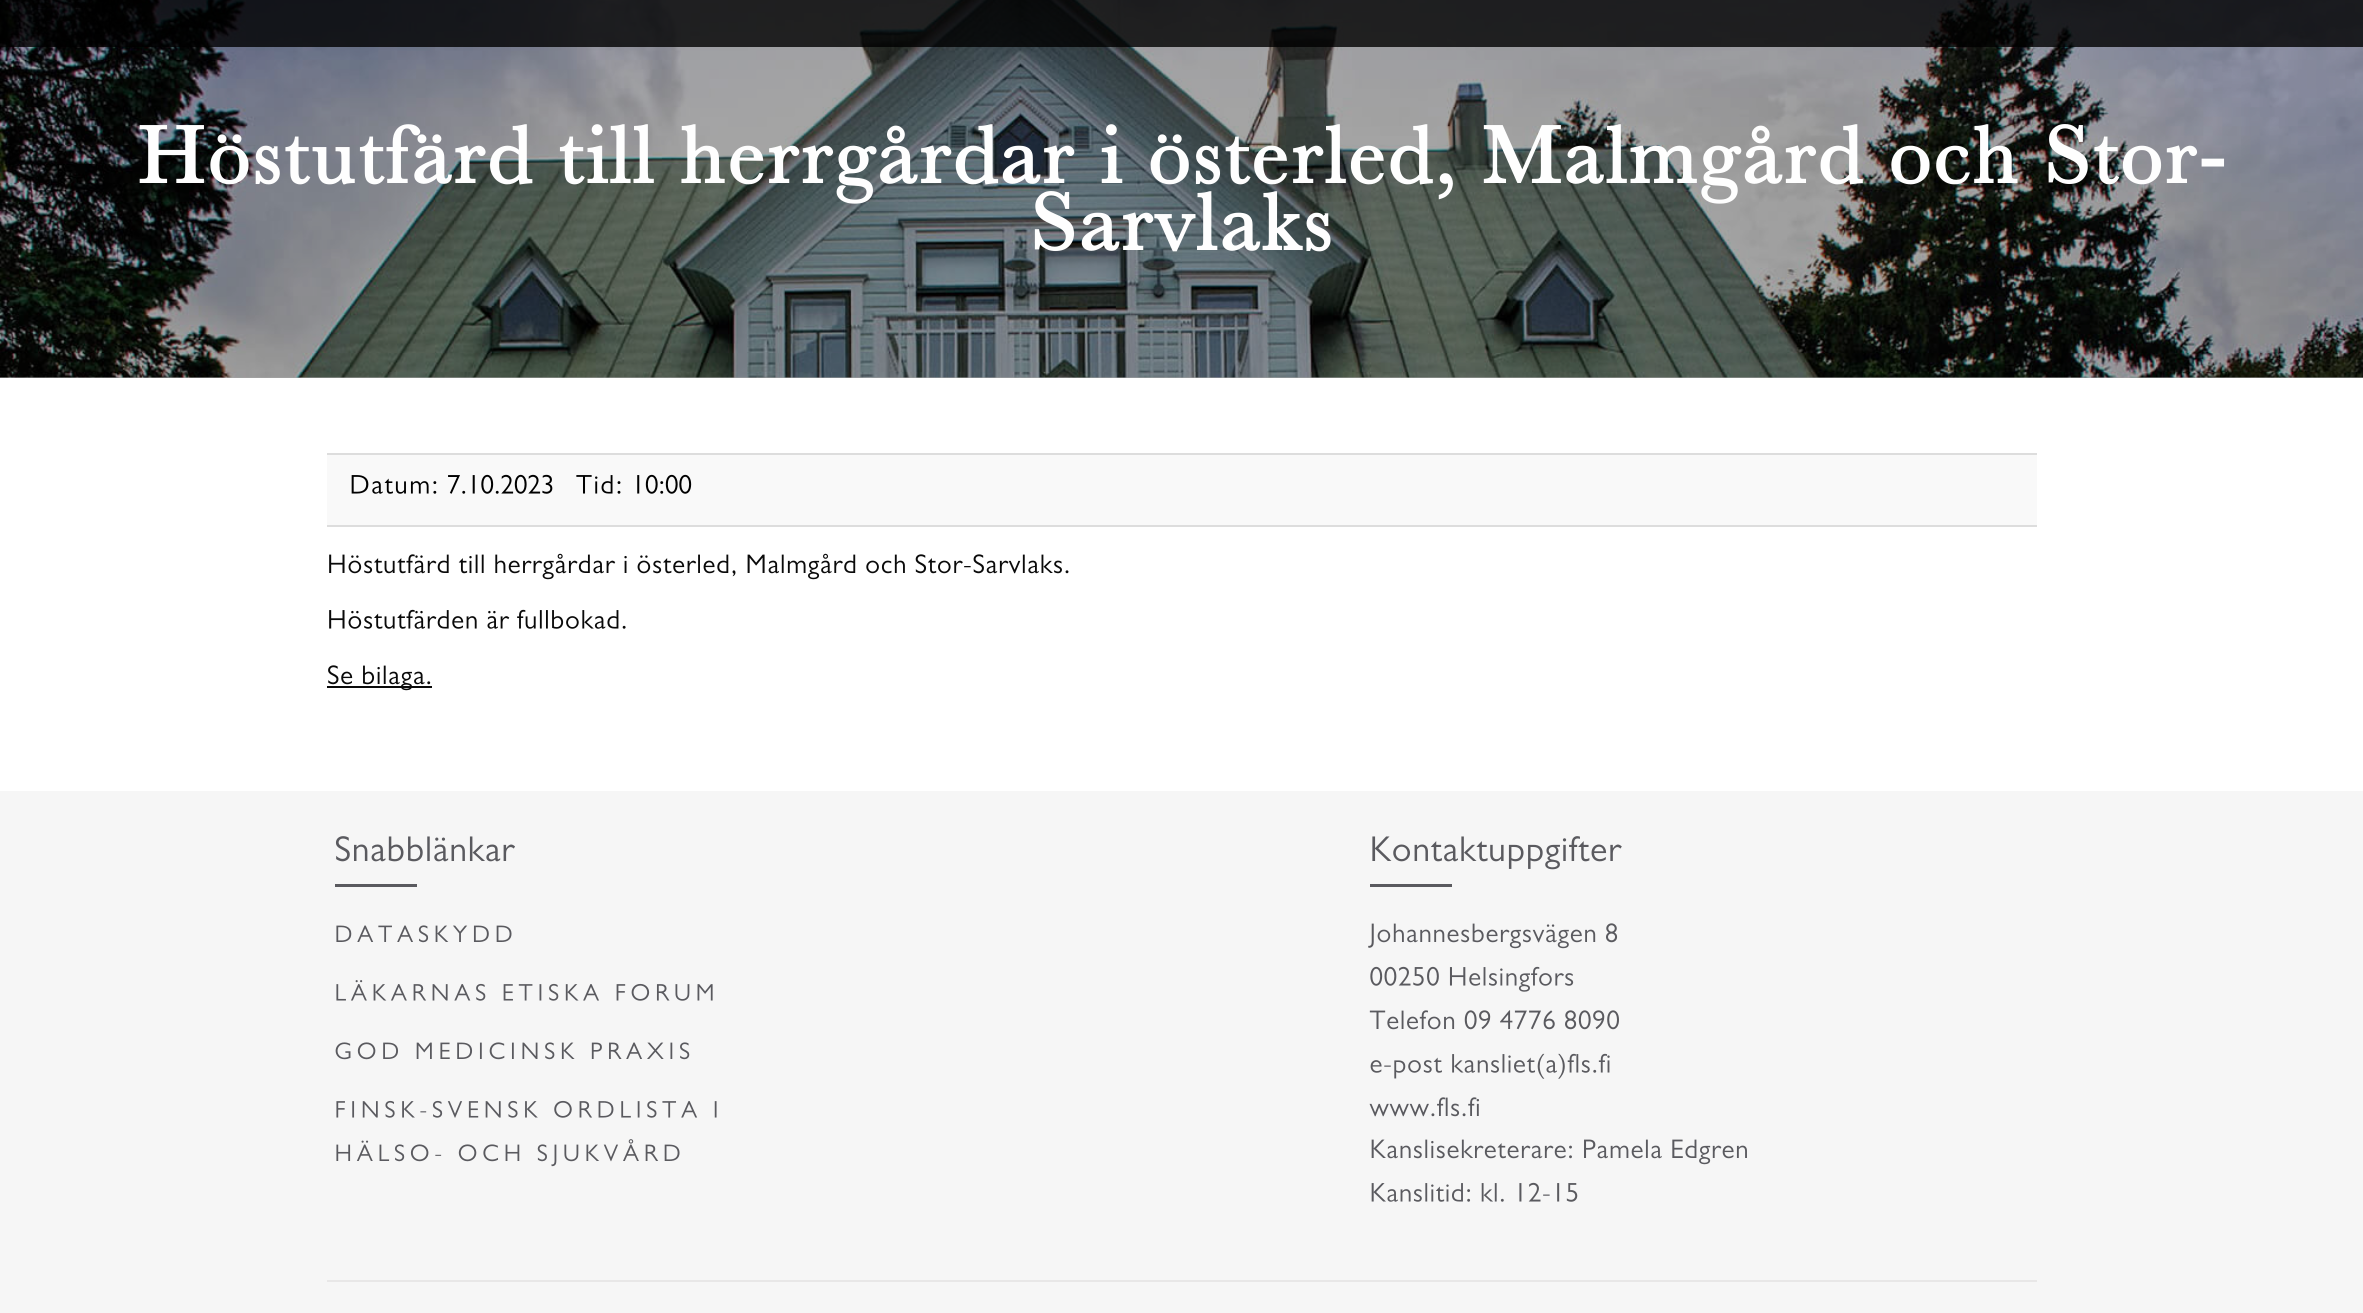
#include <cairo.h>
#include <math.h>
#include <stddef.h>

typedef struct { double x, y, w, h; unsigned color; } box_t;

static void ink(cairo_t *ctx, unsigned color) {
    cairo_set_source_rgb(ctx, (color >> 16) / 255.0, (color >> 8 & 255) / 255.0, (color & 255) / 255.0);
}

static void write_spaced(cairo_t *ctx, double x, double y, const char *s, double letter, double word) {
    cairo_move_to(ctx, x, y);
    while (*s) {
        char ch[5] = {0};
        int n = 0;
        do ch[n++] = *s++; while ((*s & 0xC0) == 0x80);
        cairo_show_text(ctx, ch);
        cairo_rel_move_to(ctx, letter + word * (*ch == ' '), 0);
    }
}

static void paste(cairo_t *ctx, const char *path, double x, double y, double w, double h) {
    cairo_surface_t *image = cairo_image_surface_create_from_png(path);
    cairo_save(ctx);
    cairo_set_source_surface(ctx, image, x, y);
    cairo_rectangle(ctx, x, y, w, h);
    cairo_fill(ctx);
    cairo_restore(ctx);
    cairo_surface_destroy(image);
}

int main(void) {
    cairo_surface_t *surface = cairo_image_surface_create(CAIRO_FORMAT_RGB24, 2363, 1313);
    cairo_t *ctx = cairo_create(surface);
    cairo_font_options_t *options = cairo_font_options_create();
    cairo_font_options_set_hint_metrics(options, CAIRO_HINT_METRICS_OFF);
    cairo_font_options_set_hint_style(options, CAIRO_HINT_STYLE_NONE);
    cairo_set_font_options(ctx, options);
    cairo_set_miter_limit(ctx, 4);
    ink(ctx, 0xFFFFFF);
    cairo_paint(ctx);
    ink(ctx, 0xA6A6A6);
    cairo_rectangle(ctx, 0, 377, 2363, 1);
    cairo_fill(ctx);
    paste(ctx, "media/1.png", 0, 0, 2363, 378);
    cairo_set_source_rgba(ctx, 0, 0, 0, 0.8);
    cairo_rectangle(ctx, 0, 0, 2363, 47);
    cairo_fill(ctx);
    cairo_select_font_face(ctx, "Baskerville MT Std", CAIRO_FONT_SLANT_NORMAL, CAIRO_FONT_WEIGHT_BOLD);
    cairo_set_font_size(ctx, 84);
    ink(ctx, 0xFEFEFE);
    write_spaced(ctx, 137, 183, "Höstutfärd till herrgårdar i österled, Malmgård och Stor-", 3, 0);
    write_spaced(ctx, 1030, 250, "Sarvlaks", 3, 0);
    {
        static const box_t items[] = {
            {327, 455, 1710, 70, 0xF9F9F9},
            {327, 453, 1710, 2, 0xDDDDDD},
            {327, 525, 1710, 2, 0xDDDDDD},
        };
        for (size_t i = 0; i < sizeof items / sizeof *items; i++) {
            ink(ctx, items[i].color);
            cairo_rectangle(ctx, items[i].x, items[i].y, items[i].w, items[i].h);
            cairo_fill(ctx);
        }
    }
    paste(ctx, "media/2.png", 351, 475, 86, 19);
    paste(ctx, "media/3.png", 448, 474, 105, 20);
    paste(ctx, "media/4.png", 576, 475, 45, 19);
    paste(ctx, "media/5.png", 637, 474, 55, 20);
    paste(ctx, "media/6.png", 329, 553, 740, 27);
    paste(ctx, "media/7.png", 329, 609, 297, 20);
    ink(ctx, 0x0A0A0A);
    cairo_rectangle(ctx, 327, 686, 105, 2);
    cairo_fill(ctx);
    paste(ctx, "media/8.png", 328, 665, 103, 26);
    ink(ctx, 0xF6F6F6);
    cairo_rectangle(ctx, 0, 791, 2363, 522);
    cairo_fill(ctx);
    paste(ctx, "media/9.png", 335, 836, 180, 26);
    ink(ctx, 0x5A5A5F);
    cairo_rectangle(ctx, 335, 884, 82, 3);
    cairo_fill(ctx);
    paste(ctx, "media/10.png", 336, 925, 176, 18);
    paste(ctx, "media/11.png", 336, 980, 377, 21);
    paste(ctx, "media/12.png", 335, 1042, 355, 18);
    paste(ctx, "media/13.png", 336, 1100, 381, 18);
    paste(ctx, "media/14.png", 336, 1139, 344, 28);
    paste(ctx, "media/15.png", 1372, 836, 250, 34);
    cairo_rectangle(ctx, 1370, 884, 82, 3);
    cairo_fill(ctx);
    paste(ctx, "media/16.png", 1368, 923, 250, 26);
    paste(ctx, "media/17.png", 1370, 966, 204, 26);
    paste(ctx, "media/18.png", 1369, 1010, 86, 20);
    paste(ctx, "media/19.png", 1464, 1010, 155, 20);
    paste(ctx, "media/20.png", 1370, 1057, 72, 22);
    paste(ctx, "media/21.png", 1452, 1053, 158, 26);
    paste(ctx, "media/22.png", 1369, 1097, 110, 20);
    paste(ctx, "media/23.png", 1371, 1139, 376, 26);
    paste(ctx, "media/24.png", 1371, 1182, 207, 20);
    ink(ctx, 0xE8E7E7);
    cairo_rectangle(ctx, 327, 1280, 1710, 2);
    cairo_fill(ctx);
    cairo_surface_write_to_png(surface, "image.png");
    cairo_font_options_destroy(options);
    cairo_destroy(ctx);
    cairo_surface_destroy(surface);
    return 0;
}
